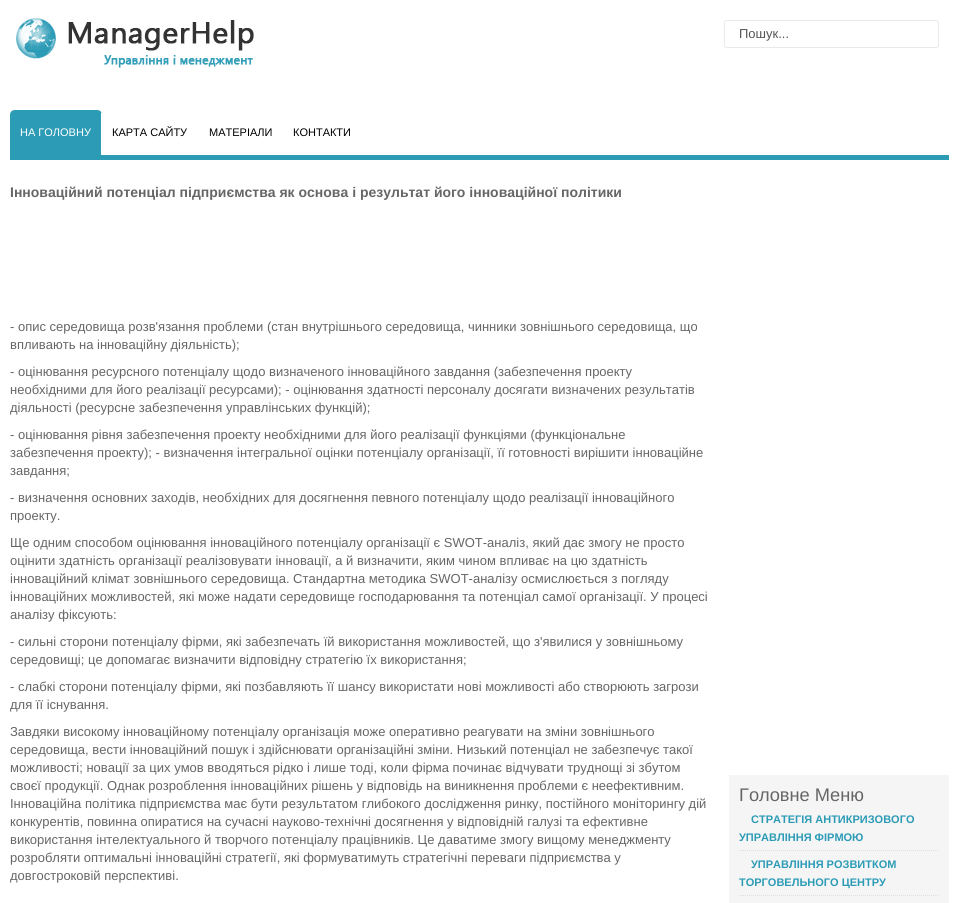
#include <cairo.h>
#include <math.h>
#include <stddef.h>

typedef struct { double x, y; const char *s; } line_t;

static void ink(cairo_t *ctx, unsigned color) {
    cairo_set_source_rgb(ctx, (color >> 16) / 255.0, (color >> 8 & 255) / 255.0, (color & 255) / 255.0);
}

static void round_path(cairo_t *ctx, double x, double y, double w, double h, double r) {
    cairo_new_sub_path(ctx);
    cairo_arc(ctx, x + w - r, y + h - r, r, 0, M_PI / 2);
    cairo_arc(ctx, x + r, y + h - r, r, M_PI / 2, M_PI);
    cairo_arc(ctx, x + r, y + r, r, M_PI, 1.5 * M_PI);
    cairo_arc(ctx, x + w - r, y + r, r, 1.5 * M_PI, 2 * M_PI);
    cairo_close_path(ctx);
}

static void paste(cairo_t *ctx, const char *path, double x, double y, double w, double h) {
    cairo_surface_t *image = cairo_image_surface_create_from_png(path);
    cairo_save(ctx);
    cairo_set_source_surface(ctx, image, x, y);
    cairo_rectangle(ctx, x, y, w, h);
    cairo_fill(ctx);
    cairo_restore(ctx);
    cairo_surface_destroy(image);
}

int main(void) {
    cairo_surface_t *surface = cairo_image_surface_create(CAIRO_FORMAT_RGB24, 959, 903);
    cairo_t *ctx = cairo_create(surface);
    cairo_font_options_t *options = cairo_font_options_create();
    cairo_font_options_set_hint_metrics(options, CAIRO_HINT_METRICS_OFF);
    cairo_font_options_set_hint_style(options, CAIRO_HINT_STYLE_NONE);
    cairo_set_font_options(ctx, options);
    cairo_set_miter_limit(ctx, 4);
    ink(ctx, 0xFFFFFF);
    cairo_paint(ctx);
    paste(ctx, "media/1.png", 16, 18, 238, 50);
    round_path(ctx, 724.5, 20.5, 214, 27, 2.5);
    ink(ctx, 0xE9E9EA);
    cairo_set_line_width(ctx, 1);
    cairo_stroke(ctx);
    cairo_select_font_face(ctx, "Liberation Sans", CAIRO_FONT_SLANT_NORMAL, CAIRO_FONT_WEIGHT_NORMAL);
    cairo_set_font_size(ctx, 13);
    ink(ctx, 0x555555);
    cairo_move_to(ctx, 739, 38);
    cairo_show_text(ctx, "Пошук...");
    ink(ctx, 0x2C9BB6);
    cairo_rectangle(ctx, 10, 155, 939, 5);
    cairo_fill(ctx);
    cairo_new_path(ctx);
    cairo_move_to(ctx, 15, 110);
    cairo_line_to(ctx, 97, 110);
    cairo_curve_to(ctx, 100, 110, 102, 112, 102, 115);
    cairo_line_to(ctx, 102, 155);
    cairo_line_to(ctx, 10, 155);
    cairo_line_to(ctx, 10, 115);
    cairo_curve_to(ctx, 10, 112, 12, 110, 15, 110);
    cairo_close_path(ctx);
    cairo_fill(ctx);
    ink(ctx, 0xFFFFFF);
    cairo_rectangle(ctx, 101, 113, 1, 42);
    cairo_fill(ctx);
    cairo_set_font_size(ctx, 11);
    cairo_move_to(ctx, 20, 136);
    cairo_show_text(ctx, "НА ГОЛОВНУ");
    ink(ctx, 0x000000);
    {
        static const line_t items[] = {
            {112, 136, "КАРТА САЙТУ"},
            {209, 136, "МАТЕРІАЛИ"},
            {293, 136, "КОНТАКТИ"},
        };
        for (size_t i = 0; i < sizeof items / sizeof *items; i++) {
            cairo_move_to(ctx, items[i].x, items[i].y);
            cairo_show_text(ctx, items[i].s);
        }
    }
    cairo_select_font_face(ctx, "Liberation Sans", CAIRO_FONT_SLANT_NORMAL, CAIRO_FONT_WEIGHT_BOLD);
    cairo_set_font_size(ctx, 14);
    ink(ctx, 0x666666);
    cairo_move_to(ctx, 10, 197);
    cairo_show_text(ctx, "Інноваційний потенціал підприємства як основа і результат його інноваційної політики");
    cairo_select_font_face(ctx, "Liberation Sans", CAIRO_FONT_SLANT_NORMAL, CAIRO_FONT_WEIGHT_NORMAL);
    cairo_set_font_size(ctx, 13);
    {
        static const line_t items[] = {
            {10, 331, "- опис середовища розв'язання проблеми (стан внутрішнього середовища, чинники зовнішнього середовища, що"},
            {10, 349, "впливають на інноваційну діяльність);"},
            {10, 376, "- оцінювання ресурсного потенціалу щодо визначеного інноваційного завдання (забезпечення проекту"},
            {10, 394, "необхідними для його реалізації ресурсами); - оцінювання здатності персоналу досягати визначених результатів"},
            {10, 412, "діяльності (ресурсне забезпечення управлінських функцій);"},
            {10, 439, "- оцінювання рівня забезпечення проекту необхідними для його реалізації функціями (функціональне"},
            {10, 457, "забезпечення проекту); - визначення інтегральної оцінки потенціалу організації, її готовності вирішити інноваційне"},
            {10, 475, "завдання;"},
            {10, 502, "- визначення основних заходів, необхідних для досягнення певного потенціалу щодо реалізації інноваційного"},
            {10, 520, "проекту."},
            {10, 547, "Ще одним способом оцінювання інноваційного потенціалу організації є SWOT-аналіз, який дає змогу не просто"},
            {10, 565, "оцінити здатність організації реалізовувати інновації, а й визначити, яким чином впливає на цю здатність"},
            {10, 583, "інноваційний клімат зовнішнього середовища. Стандартна методика SWOT-аналізу осмислюється з погляду"},
            {10, 601, "інноваційних можливостей, які може надати середовище господарювання та потенціал самої організації. У процесі"},
            {10, 619, "аналізу фіксують:"},
            {10, 646, "- сильні сторони потенціалу фірми, які забезпечать їй використання можливостей, що з'явилися у зовнішньому"},
            {10, 664, "середовищі; це допомагає визначити відповідну стратегію їх використання;"},
            {10, 691, "- слабкі сторони потенціалу фірми, які позбавляють її шансу використати нові можливості або створюють загрози"},
            {10, 709, "для її існування."},
            {10, 736, "Завдяки високому інноваційному потенціалу організація може оперативно реагувати на зміни зовнішнього"},
            {10, 754, "середовища, вести інноваційний пошук і здійснювати організаційні зміни. Низький потенціал не забезпечує такої"},
            {10, 772, "можливості; новації за цих умов вводяться рідко і лише тоді, коли фірма починає відчувати труднощі зі збутом"},
            {10, 790, "своєї продукції. Однак розроблення інноваційних рішень у відповідь на виникнення проблеми є неефективним."},
            {10, 808, "Інноваційна політика підприємства має бути результатом глибокого дослідження ринку, постійного моніторингу дій"},
            {10, 826, "конкурентів, повинна опиратися на сучасні науково-технічні досягнення у відповідній галузі та ефективне"},
            {10, 844, "використання інтелектуального й творчого потенціалу працівників. Це даватиме змогу вищому менеджменту"},
            {10, 862, "розробляти оптимальні інноваційні стратегії, які формуватимуть стратегічні переваги підприємства у"},
            {10, 880, "довгостроковій перспективі."},
        };
        for (size_t i = 0; i < sizeof items / sizeof *items; i++) {
            cairo_move_to(ctx, items[i].x, items[i].y);
            cairo_show_text(ctx, items[i].s);
        }
    }
    ink(ctx, 0xF5F5F5);
    cairo_rectangle(ctx, 729, 775, 220, 128);
    cairo_fill(ctx);
    cairo_set_font_size(ctx, 18.25);
    ink(ctx, 0x666666);
    cairo_move_to(ctx, 739, 801);
    cairo_show_text(ctx, "Головне Меню");
    cairo_new_path(ctx);
    cairo_move_to(ctx, 739, 850.5);
    cairo_line_to(ctx, 939, 850.5);
    ink(ctx, 0xDEDEDE);
    cairo_set_dash(ctx, (double[]){1, 1}, 2, 0);
    cairo_stroke(ctx);
    cairo_select_font_face(ctx, "Liberation Sans", CAIRO_FONT_SLANT_NORMAL, CAIRO_FONT_WEIGHT_BOLD);
    cairo_set_font_size(ctx, 11);
    ink(ctx, 0x2C9BB6);
    cairo_move_to(ctx, 751, 823);
    cairo_show_text(ctx, "СТРАТЕГІЯ АНТИКРИЗОВОГО");
    cairo_move_to(ctx, 739, 841);
    cairo_show_text(ctx, "УПРАВЛІННЯ ФІРМОЮ");
    cairo_new_path(ctx);
    cairo_move_to(ctx, 739, 895.5);
    cairo_line_to(ctx, 939, 895.5);
    ink(ctx, 0xDEDEDE);
    cairo_stroke(ctx);
    ink(ctx, 0x2C9BB6);
    cairo_move_to(ctx, 751, 868);
    cairo_show_text(ctx, "УПРАВЛІННЯ РОЗВИТКОМ");
    cairo_move_to(ctx, 739, 886);
    cairo_show_text(ctx, "ТОРГОВЕЛЬНОГО ЦЕНТРУ");
    cairo_surface_write_to_png(surface, "image.png");
    cairo_font_options_destroy(options);
    cairo_destroy(ctx);
    cairo_surface_destroy(surface);
    return 0;
}
